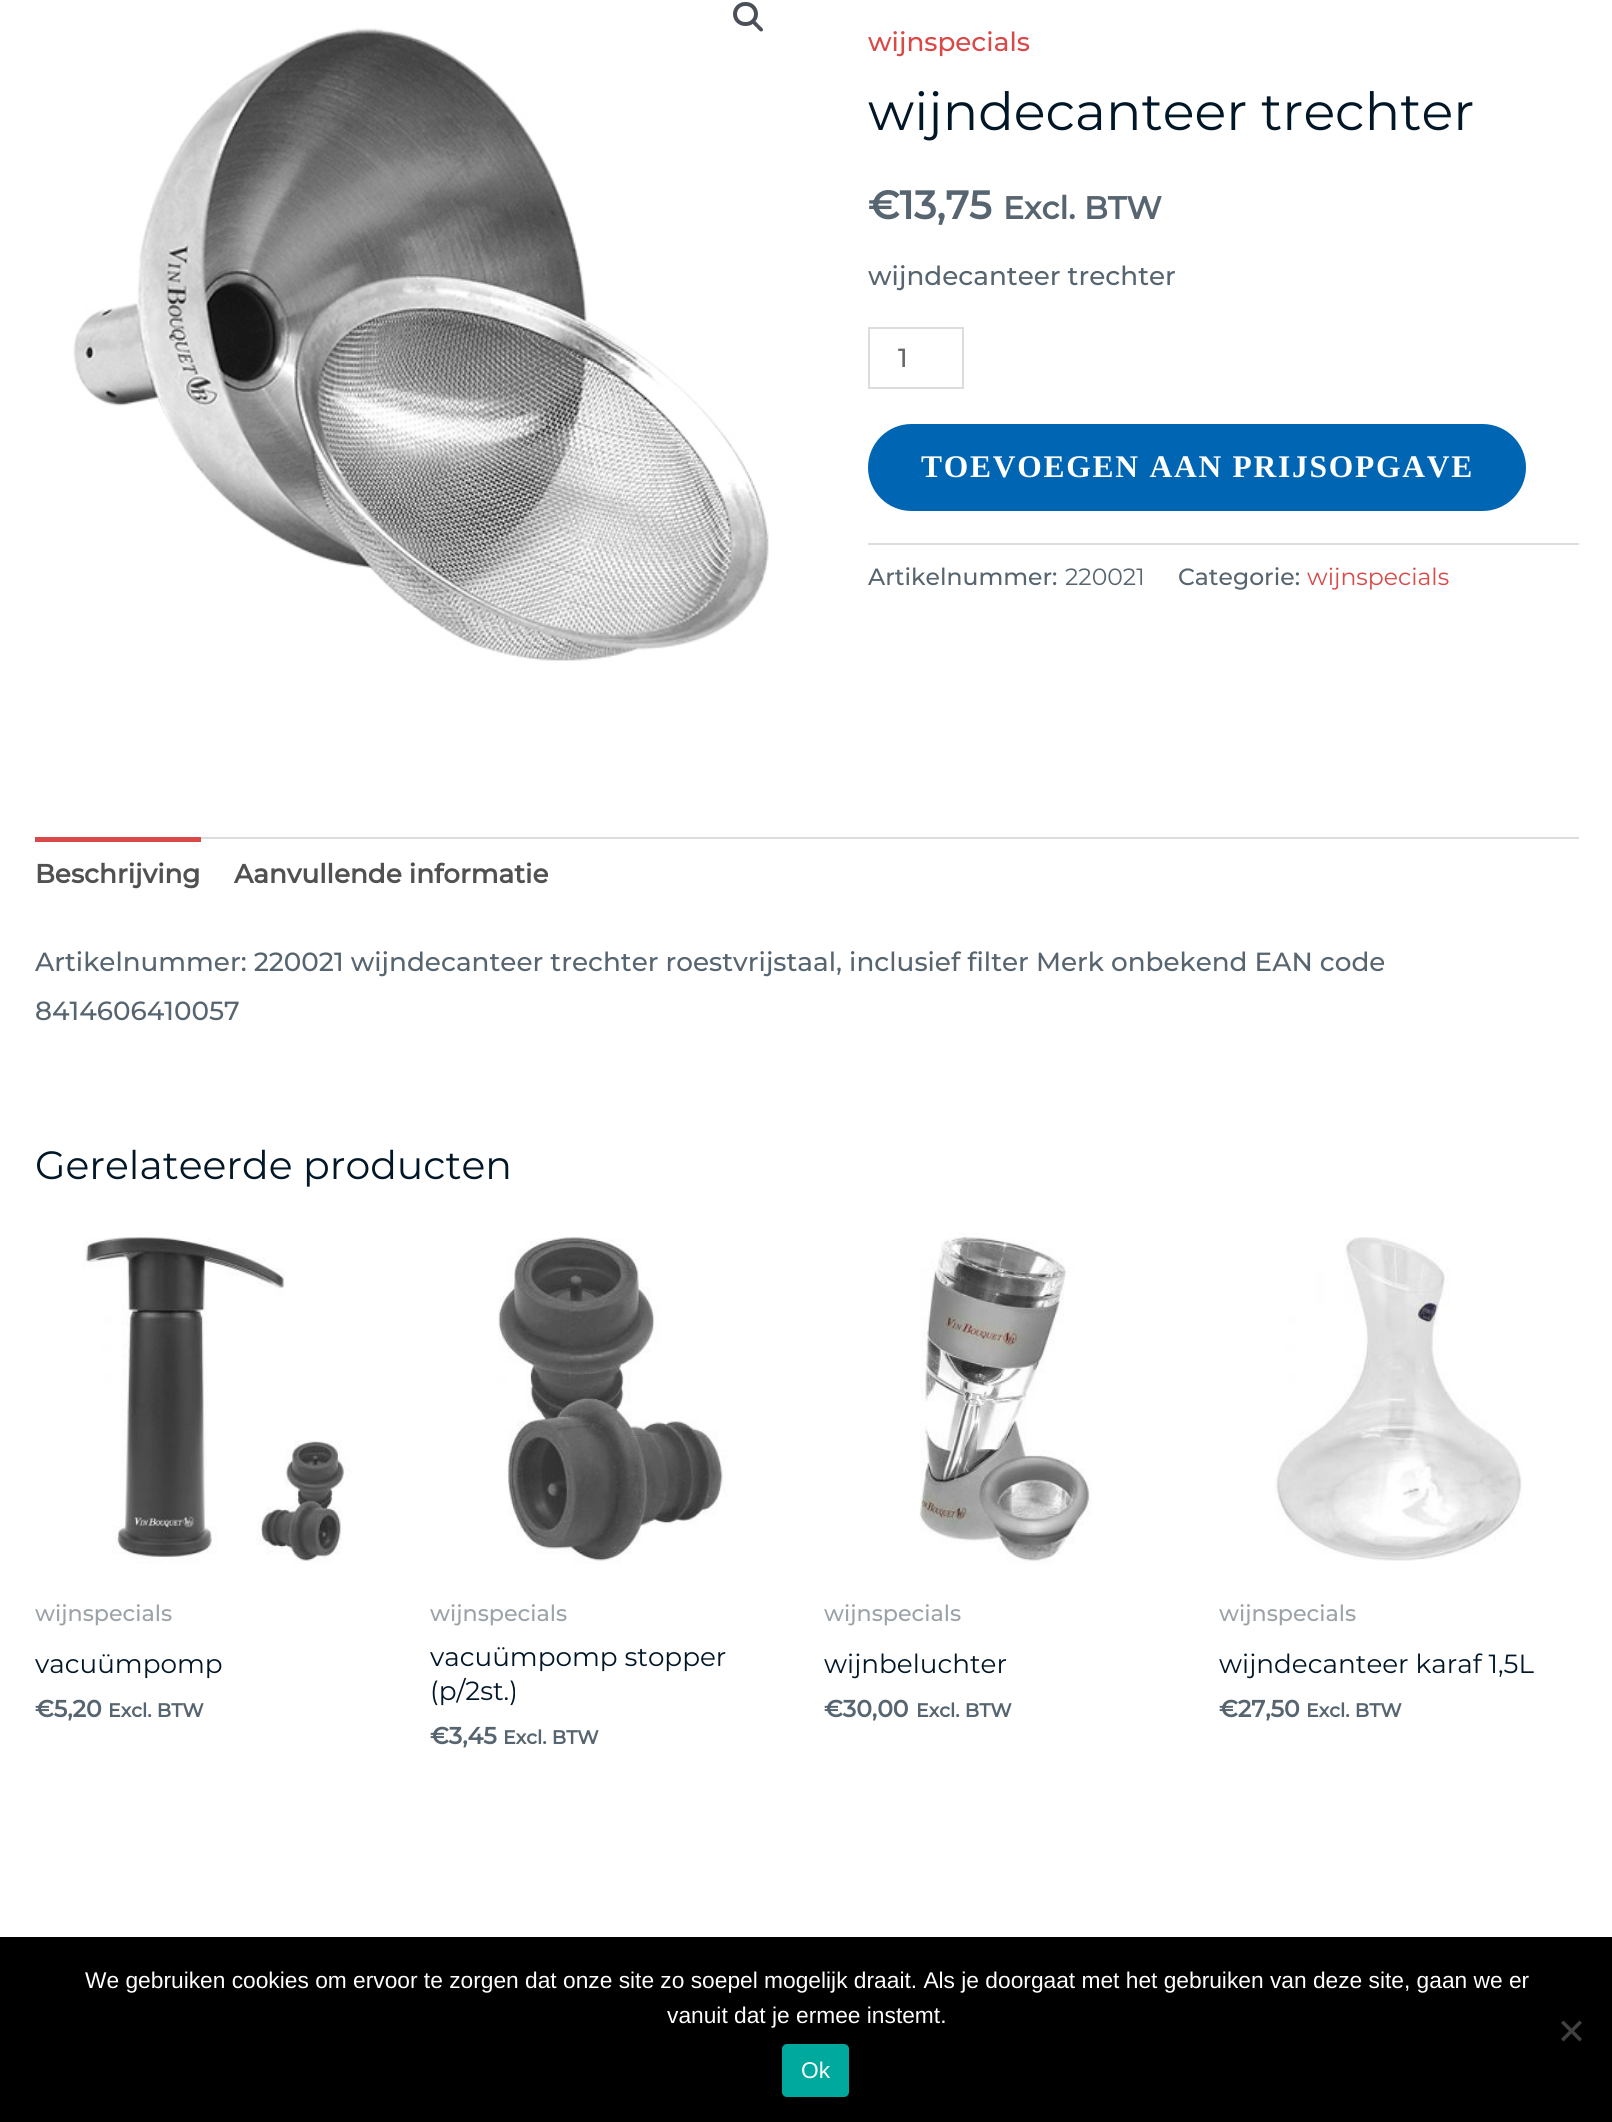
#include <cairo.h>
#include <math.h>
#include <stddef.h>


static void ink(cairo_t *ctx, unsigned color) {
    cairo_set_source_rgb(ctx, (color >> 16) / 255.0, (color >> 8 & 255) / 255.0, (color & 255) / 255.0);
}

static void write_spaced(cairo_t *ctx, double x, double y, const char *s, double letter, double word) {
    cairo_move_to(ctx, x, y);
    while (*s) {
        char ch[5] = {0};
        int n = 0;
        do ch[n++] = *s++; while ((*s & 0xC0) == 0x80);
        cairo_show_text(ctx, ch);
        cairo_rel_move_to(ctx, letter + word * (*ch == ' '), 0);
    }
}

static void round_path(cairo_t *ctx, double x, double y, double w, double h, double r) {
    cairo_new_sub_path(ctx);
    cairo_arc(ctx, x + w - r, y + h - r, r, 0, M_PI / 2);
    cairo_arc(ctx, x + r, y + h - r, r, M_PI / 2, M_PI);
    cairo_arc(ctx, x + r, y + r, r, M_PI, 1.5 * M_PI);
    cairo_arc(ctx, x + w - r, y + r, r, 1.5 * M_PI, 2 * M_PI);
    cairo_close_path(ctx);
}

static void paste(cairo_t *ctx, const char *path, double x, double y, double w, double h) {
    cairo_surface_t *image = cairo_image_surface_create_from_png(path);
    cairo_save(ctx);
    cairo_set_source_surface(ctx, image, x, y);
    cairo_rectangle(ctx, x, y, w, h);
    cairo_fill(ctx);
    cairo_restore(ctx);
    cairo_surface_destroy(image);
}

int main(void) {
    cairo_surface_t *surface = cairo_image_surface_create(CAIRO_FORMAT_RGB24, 1612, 2122);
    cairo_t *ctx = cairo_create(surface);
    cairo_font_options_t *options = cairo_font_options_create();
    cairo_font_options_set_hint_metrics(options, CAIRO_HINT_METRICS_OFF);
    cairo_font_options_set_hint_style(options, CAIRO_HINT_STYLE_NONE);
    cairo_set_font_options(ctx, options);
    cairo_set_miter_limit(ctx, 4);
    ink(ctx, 0xFFFFFF);
    cairo_paint(ctx);
    round_path(ctx, 735, 4, 21, 20, 10);
    ink(ctx, 0x4B4F58);
    cairo_set_line_width(ctx, 4);
    cairo_stroke(ctx);
    paste(ctx, "media/1.png", 73, 28, 696, 633);
    cairo_new_path(ctx);
    cairo_move_to(ctx, 753, 21.5);
    cairo_curve_to(ctx, 755, 19.5, 758, 24, 759, 25);
    cairo_curve_to(ctx, 760, 26, 764.5, 29, 762.5, 31);
    cairo_curve_to(ctx, 760.5, 33, 757.5, 28.5, 756.5, 27.5);
    cairo_curve_to(ctx, 755.5, 26.5, 751, 23.5, 753, 21.5);
    cairo_close_path(ctx);
    cairo_fill(ctx);
    cairo_select_font_face(ctx, "Montserrat Medium", CAIRO_FONT_SLANT_NORMAL, CAIRO_FONT_WEIGHT_NORMAL);
    cairo_set_font_size(ctx, 26.25);
    ink(ctx, 0xD94948);
    cairo_move_to(ctx, 868, 51);
    cairo_show_text(ctx, "wijnspecials");
    cairo_select_font_face(ctx, "Montserrat", CAIRO_FONT_SLANT_NORMAL, CAIRO_FONT_WEIGHT_NORMAL);
    cairo_set_font_size(ctx, 52.5);
    ink(ctx, 0x011627);
    cairo_move_to(ctx, 868, 130);
    cairo_show_text(ctx, "wijndecanteer trechter");
    cairo_select_font_face(ctx, "Montserrat", CAIRO_FONT_SLANT_NORMAL, CAIRO_FONT_WEIGHT_BOLD);
    cairo_set_font_size(ctx, 39.4);
    ink(ctx, 0x576570);
    cairo_move_to(ctx, 868, 219);
    cairo_show_text(ctx, "€13,75");
    cairo_set_font_size(ctx, 31.5);
    cairo_move_to(ctx, 1003, 219);
    cairo_show_text(ctx, "Excl. BTW");
    cairo_select_font_face(ctx, "Montserrat Medium", CAIRO_FONT_SLANT_NORMAL, CAIRO_FONT_WEIGHT_NORMAL);
    cairo_set_font_size(ctx, 26.25);
    cairo_move_to(ctx, 868, 285);
    cairo_show_text(ctx, "wijndecanteer trechter");
    cairo_rectangle(ctx, 869, 328, 94, 60);
    ink(ctx, 0xDDDDDD);
    cairo_set_line_width(ctx, 2);
    cairo_stroke(ctx);
    ink(ctx, 0x666666);
    cairo_move_to(ctx, 898, 367);
    cairo_show_text(ctx, "1");
    ink(ctx, 0x0066B4);
    round_path(ctx, 868, 424, 658, 87, 43.5);
    cairo_fill(ctx);
    cairo_select_font_face(ctx, "Liberation Serif", CAIRO_FONT_SLANT_NORMAL, CAIRO_FONT_WEIGHT_BOLD);
    cairo_set_font_size(ctx, 31.5);
    ink(ctx, 0xFFFFFF);
    write_spaced(ctx, 921, 477, "TOEVOEGEN AAN PRIJSOPGAVE", 1.75, 0);
    ink(ctx, 0xDDDDDD);
    cairo_rectangle(ctx, 868, 543, 711, 2);
    cairo_fill(ctx);
    cairo_select_font_face(ctx, "Montserrat Medium", CAIRO_FONT_SLANT_NORMAL, CAIRO_FONT_WEIGHT_NORMAL);
    cairo_set_font_size(ctx, 23.5);
    ink(ctx, 0x576570);
    cairo_move_to(ctx, 868, 585);
    cairo_show_text(ctx, "Artikelnummer:");
    cairo_select_font_face(ctx, "Montserrat", CAIRO_FONT_SLANT_NORMAL, CAIRO_FONT_WEIGHT_NORMAL);
    cairo_move_to(ctx, 1065, 585);
    cairo_show_text(ctx, "220021");
    cairo_select_font_face(ctx, "Montserrat Medium", CAIRO_FONT_SLANT_NORMAL, CAIRO_FONT_WEIGHT_NORMAL);
    cairo_move_to(ctx, 1178, 585);
    cairo_show_text(ctx, "Categorie:");
    cairo_select_font_face(ctx, "Montserrat", CAIRO_FONT_SLANT_NORMAL, CAIRO_FONT_WEIGHT_NORMAL);
    ink(ctx, 0xD94948);
    cairo_move_to(ctx, 1307, 585);
    cairo_show_text(ctx, "wijnspecials");
    ink(ctx, 0xDDDDDD);
    cairo_rectangle(ctx, 201, 837, 1378, 2);
    cairo_fill(ctx);
    ink(ctx, 0xD94948);
    cairo_rectangle(ctx, 35, 837, 166, 5);
    cairo_fill(ctx);
    cairo_select_font_face(ctx, "Montserrat", CAIRO_FONT_SLANT_NORMAL, CAIRO_FONT_WEIGHT_BOLD);
    cairo_set_font_size(ctx, 26.25);
    ink(ctx, 0x515151);
    cairo_move_to(ctx, 35, 883);
    cairo_show_text(ctx, "Beschrijving");
    cairo_move_to(ctx, 234, 883);
    cairo_show_text(ctx, "Aanvullende informatie");
    cairo_select_font_face(ctx, "Montserrat Medium", CAIRO_FONT_SLANT_NORMAL, CAIRO_FONT_WEIGHT_NORMAL);
    ink(ctx, 0x576570);
    cairo_move_to(ctx, 35, 971);
    cairo_show_text(ctx, "Artikelnummer: 220021 wijndecanteer trechter roestvrijstaal, inclusief filter Merk onbekend EAN code");
    cairo_move_to(ctx, 35, 1020);
    cairo_show_text(ctx, "8414606410057");
    cairo_select_font_face(ctx, "Montserrat", CAIRO_FONT_SLANT_NORMAL, CAIRO_FONT_WEIGHT_NORMAL);
    cairo_set_font_size(ctx, 39.4);
    ink(ctx, 0x011627);
    cairo_move_to(ctx, 35, 1179);
    cairo_show_text(ctx, "Gerelateerde producten");
    paste(ctx, "media/2.png", 83, 1237, 268, 327);
    cairo_select_font_face(ctx, "Montserrat Medium", CAIRO_FONT_SLANT_NORMAL, CAIRO_FONT_WEIGHT_NORMAL);
    cairo_set_font_size(ctx, 22.25);
    ink(ctx, 0x9BA3A9);
    cairo_move_to(ctx, 35, 1621);
    cairo_show_text(ctx, "wijnspecials");
    cairo_select_font_face(ctx, "Montserrat", CAIRO_FONT_SLANT_NORMAL, CAIRO_FONT_WEIGHT_NORMAL);
    cairo_set_font_size(ctx, 26.25);
    ink(ctx, 0x011627);
    cairo_move_to(ctx, 35, 1673);
    cairo_show_text(ctx, "vacuümpomp");
    cairo_select_font_face(ctx, "Montserrat", CAIRO_FONT_SLANT_NORMAL, CAIRO_FONT_WEIGHT_BOLD);
    cairo_set_font_size(ctx, 23.5);
    ink(ctx, 0x576570);
    cairo_move_to(ctx, 35, 1717);
    cairo_show_text(ctx, "€5,20");
    cairo_set_font_size(ctx, 19);
    cairo_move_to(ctx, 108, 1717);
    cairo_show_text(ctx, "Excl. BTW");
    paste(ctx, "media/3.png", 498, 1237, 229, 327);
    cairo_select_font_face(ctx, "Montserrat Medium", CAIRO_FONT_SLANT_NORMAL, CAIRO_FONT_WEIGHT_NORMAL);
    cairo_set_font_size(ctx, 22.25);
    ink(ctx, 0x9BA3A9);
    cairo_move_to(ctx, 430, 1621);
    cairo_show_text(ctx, "wijnspecials");
    cairo_select_font_face(ctx, "Montserrat", CAIRO_FONT_SLANT_NORMAL, CAIRO_FONT_WEIGHT_NORMAL);
    cairo_set_font_size(ctx, 26.25);
    ink(ctx, 0x011627);
    cairo_move_to(ctx, 430, 1666);
    cairo_show_text(ctx, "vacuümpomp stopper");
    cairo_move_to(ctx, 430, 1700);
    cairo_show_text(ctx, "(p/2st.)");
    cairo_select_font_face(ctx, "Montserrat", CAIRO_FONT_SLANT_NORMAL, CAIRO_FONT_WEIGHT_BOLD);
    cairo_set_font_size(ctx, 23.5);
    ink(ctx, 0x576570);
    cairo_move_to(ctx, 430, 1744);
    cairo_show_text(ctx, "€3,45");
    cairo_set_font_size(ctx, 19);
    cairo_move_to(ctx, 503, 1744);
    cairo_show_text(ctx, "Excl. BTW");
    paste(ctx, "media/4.png", 919, 1232, 173, 332);
    cairo_select_font_face(ctx, "Montserrat Medium", CAIRO_FONT_SLANT_NORMAL, CAIRO_FONT_WEIGHT_NORMAL);
    cairo_set_font_size(ctx, 22.25);
    ink(ctx, 0x9BA3A9);
    cairo_move_to(ctx, 824, 1621);
    cairo_show_text(ctx, "wijnspecials");
    cairo_select_font_face(ctx, "Montserrat", CAIRO_FONT_SLANT_NORMAL, CAIRO_FONT_WEIGHT_NORMAL);
    cairo_set_font_size(ctx, 26.25);
    ink(ctx, 0x011627);
    cairo_move_to(ctx, 824, 1673);
    cairo_show_text(ctx, "wijnbeluchter");
    cairo_select_font_face(ctx, "Montserrat", CAIRO_FONT_SLANT_NORMAL, CAIRO_FONT_WEIGHT_BOLD);
    cairo_set_font_size(ctx, 23.5);
    ink(ctx, 0x576570);
    cairo_move_to(ctx, 824, 1717);
    cairo_show_text(ctx, "€30,00");
    cairo_set_font_size(ctx, 19);
    cairo_move_to(ctx, 916, 1717);
    cairo_show_text(ctx, "Excl. BTW");
    paste(ctx, "media/5.png", 1275, 1237, 248, 324);
    cairo_select_font_face(ctx, "Montserrat Medium", CAIRO_FONT_SLANT_NORMAL, CAIRO_FONT_WEIGHT_NORMAL);
    cairo_set_font_size(ctx, 22.25);
    ink(ctx, 0x9BA3A9);
    cairo_move_to(ctx, 1219, 1621);
    cairo_show_text(ctx, "wijnspecials");
    cairo_select_font_face(ctx, "Montserrat", CAIRO_FONT_SLANT_NORMAL, CAIRO_FONT_WEIGHT_NORMAL);
    cairo_set_font_size(ctx, 26.25);
    ink(ctx, 0x011627);
    cairo_move_to(ctx, 1219, 1673);
    cairo_show_text(ctx, "wijndecanteer karaf 1,5L");
    cairo_select_font_face(ctx, "Montserrat", CAIRO_FONT_SLANT_NORMAL, CAIRO_FONT_WEIGHT_BOLD);
    cairo_set_font_size(ctx, 23.5);
    ink(ctx, 0x576570);
    cairo_move_to(ctx, 1219, 1717);
    cairo_show_text(ctx, "€27,50");
    cairo_set_font_size(ctx, 19);
    cairo_move_to(ctx, 1306, 1717);
    cairo_show_text(ctx, "Excl. BTW");
    ink(ctx, 0x000000);
    cairo_rectangle(ctx, 0, 1937, 1612, 185);
    cairo_fill(ctx);
    cairo_select_font_face(ctx, "Liberation Sans", CAIRO_FONT_SLANT_NORMAL, CAIRO_FONT_WEIGHT_NORMAL);
    cairo_set_font_size(ctx, 22.75);
    ink(ctx, 0xFFFFFF);
    cairo_move_to(ctx, 85, 1988);
    cairo_show_text(ctx, "We gebruiken cookies om ervoor te zorgen dat onze site zo soepel mogelijk draait. Als je doorgaat met het gebruiken van deze site, gaan we er");
    cairo_move_to(ctx, 667, 2023);
    cairo_show_text(ctx, "vanuit dat je ermee instemt.");
    ink(ctx, 0x404040);
    cairo_new_path(ctx);
    cairo_move_to(ctx, 1579.5, 2020.5);
    cairo_line_to(ctx, 1582, 2023);
    cairo_line_to(ctx, 1563.5, 2041.5);
    cairo_line_to(ctx, 1561, 2039);
    cairo_close_path(ctx);
    cairo_fill(ctx);
    cairo_new_path(ctx);
    cairo_move_to(ctx, 1561, 2023);
    cairo_line_to(ctx, 1563.5, 2020.5);
    cairo_line_to(ctx, 1582, 2039);
    cairo_line_to(ctx, 1579.5, 2041.5);
    cairo_close_path(ctx);
    cairo_fill(ctx);
    ink(ctx, 0x00A99D);
    round_path(ctx, 782, 2044, 67, 53, 5);
    cairo_fill(ctx);
    ink(ctx, 0xFFFFFF);
    cairo_move_to(ctx, 801, 2078);
    cairo_show_text(ctx, "Ok");
    cairo_surface_write_to_png(surface, "image.png");
    cairo_font_options_destroy(options);
    cairo_destroy(ctx);
    cairo_surface_destroy(surface);
    return 0;
}
